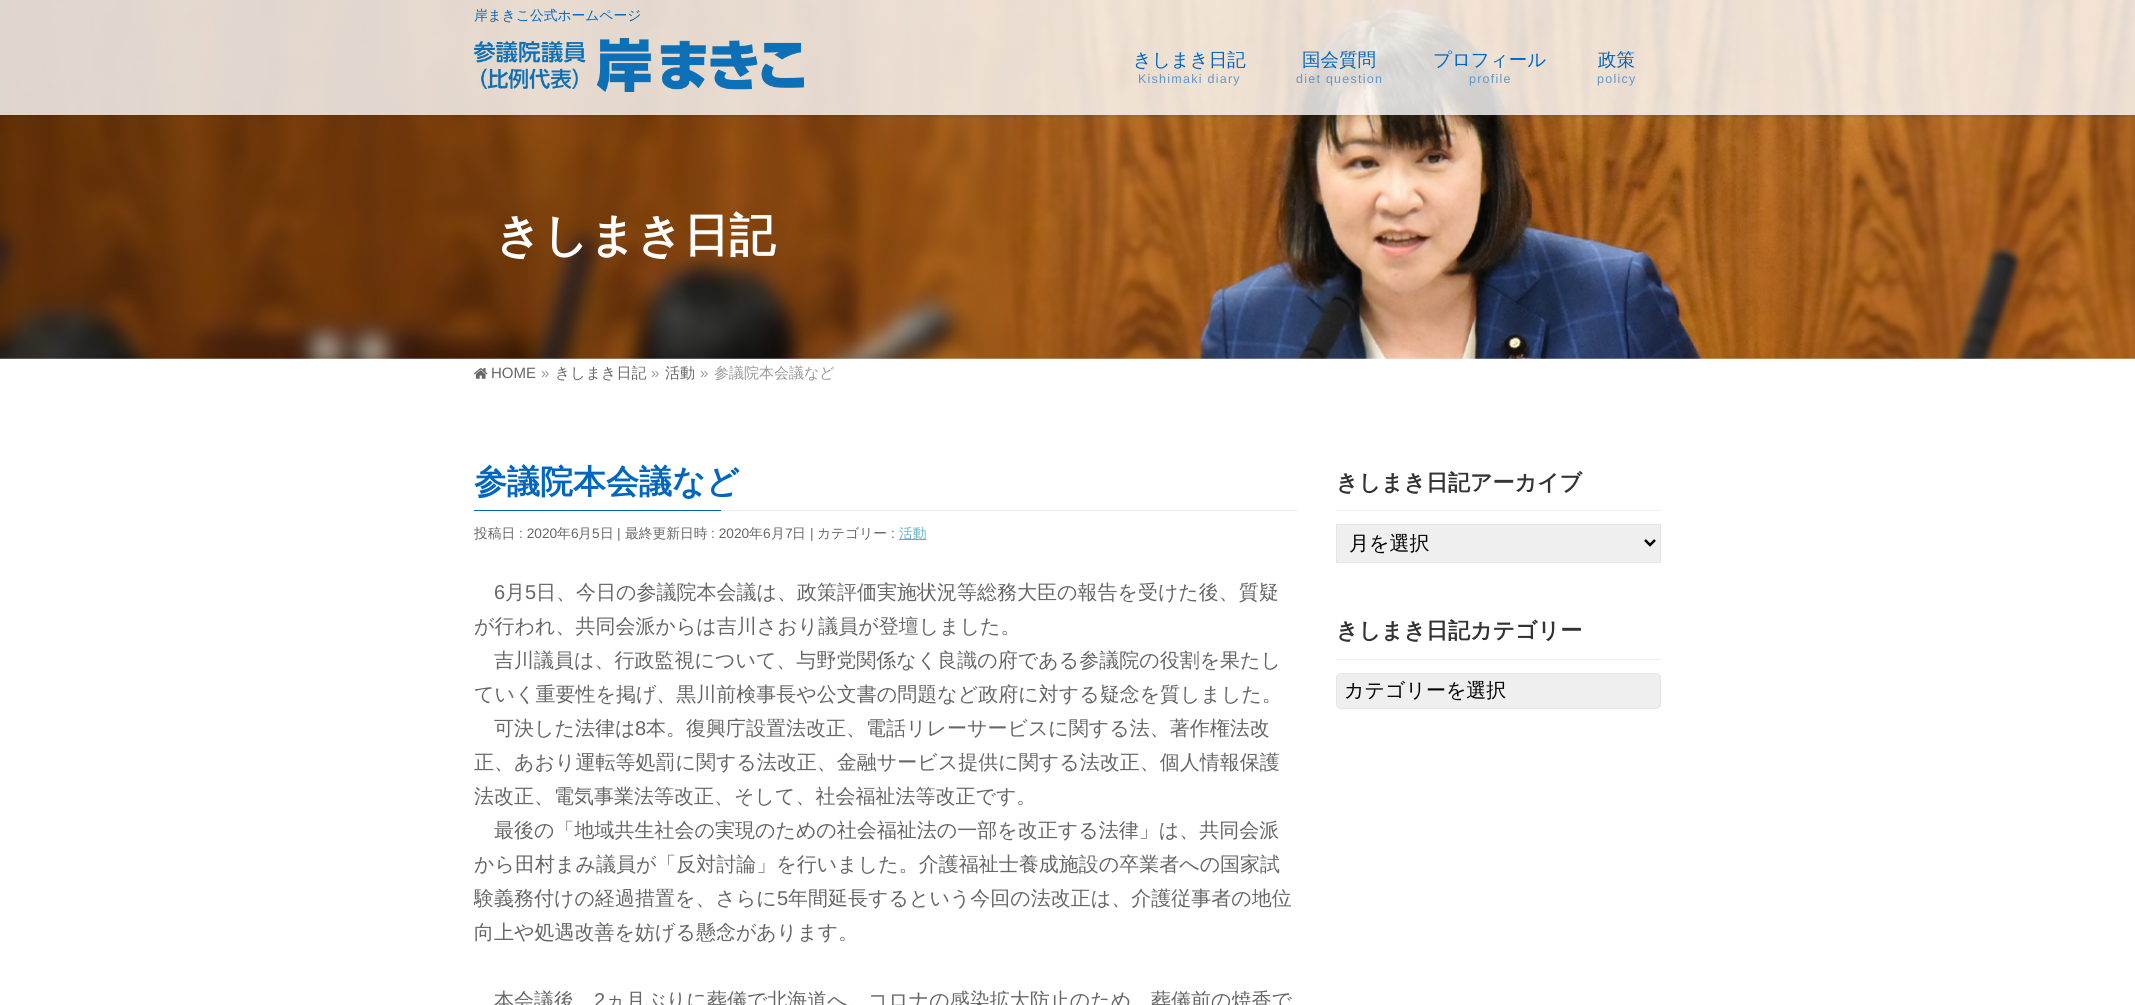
#include <cairo.h>
#include <math.h>
#include <stddef.h>

typedef struct { double x, y; const char *s; } line_t;

static void ink(cairo_t *ctx, unsigned color) {
    cairo_set_source_rgb(ctx, (color >> 16) / 255.0, (color >> 8 & 255) / 255.0, (color & 255) / 255.0);
}

static void write_spaced(cairo_t *ctx, double x, double y, const char *s, double letter, double word) {
    cairo_move_to(ctx, x, y);
    while (*s) {
        char ch[5] = {0};
        int n = 0;
        do ch[n++] = *s++; while ((*s & 0xC0) == 0x80);
        cairo_show_text(ctx, ch);
        cairo_rel_move_to(ctx, letter + word * (*ch == ' '), 0);
    }
}

static void round_path(cairo_t *ctx, double x, double y, double w, double h, double r) {
    cairo_new_sub_path(ctx);
    cairo_arc(ctx, x + w - r, y + h - r, r, 0, M_PI / 2);
    cairo_arc(ctx, x + r, y + h - r, r, M_PI / 2, M_PI);
    cairo_arc(ctx, x + r, y + r, r, M_PI, 1.5 * M_PI);
    cairo_arc(ctx, x + w - r, y + r, r, 1.5 * M_PI, 2 * M_PI);
    cairo_close_path(ctx);
}

static void blur_box(cairo_t *ctx, double x, double y, double w, double h, double r, double blur, double alpha) {
    cairo_push_group_with_content(ctx, CAIRO_CONTENT_ALPHA);
    cairo_set_operator(ctx, CAIRO_OPERATOR_SOURCE);
    for (int i = 15; i >= -15 && fmin(w, h) + blur * i / 3 > 0; i -= 2) {
        double e = blur * i / 6;
        cairo_set_source_rgba(ctx, 0, 0, 0, alpha * erfc((i - 1) / 8.5) / 2);
        round_path(ctx, x - e, y - e, w + 2 * e, h + 2 * e, fmax(0, fmin(r + e + blur * .6, fmin(w, h) / 2 + e)));
        cairo_fill(ctx);
    }
    cairo_pattern_t *soft = cairo_pop_group(ctx);
    cairo_mask(ctx, soft);
    cairo_pattern_destroy(soft);
}

static void paste(cairo_t *ctx, const char *path, double x, double y, double w, double h) {
    cairo_surface_t *image = cairo_image_surface_create_from_png(path);
    cairo_save(ctx);
    cairo_set_source_surface(ctx, image, x, y);
    cairo_rectangle(ctx, x, y, w, h);
    cairo_fill(ctx);
    cairo_restore(ctx);
    cairo_surface_destroy(image);
}

int main(void) {
    cairo_surface_t *surface = cairo_image_surface_create(CAIRO_FORMAT_RGB24, 2135, 1005);
    cairo_t *ctx = cairo_create(surface);
    cairo_font_options_t *options = cairo_font_options_create();
    cairo_font_options_set_hint_metrics(options, CAIRO_HINT_METRICS_OFF);
    cairo_font_options_set_hint_style(options, CAIRO_HINT_STYLE_NONE);
    cairo_set_font_options(ctx, options);
    cairo_set_miter_limit(ctx, 4);
    ink(ctx, 0xFFFFFF);
    cairo_paint(ctx);
    paste(ctx, "media/2.png", 0, 0, 2135, 359);
    cairo_save(ctx);
    cairo_rectangle(ctx, 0, 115, 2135, 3);
    cairo_clip(ctx);
    ink(ctx, 0x000000);
    blur_box(ctx, 0, 1, 2135, 115, 0, 2, 0.1);
    cairo_restore(ctx);
    cairo_set_source_rgba(ctx, 1, 1, 1, 0.8);
    cairo_rectangle(ctx, 0, 0, 2135, 115);
    cairo_fill(ctx);
    cairo_select_font_face(ctx, "WenQuanYi Zen Hei Medium", CAIRO_FONT_SLANT_NORMAL, CAIRO_FONT_WEIGHT_NORMAL);
    cairo_set_font_size(ctx, 13.75);
    ink(ctx, 0x0066BF);
    cairo_move_to(ctx, 474, 20);
    cairo_show_text(ctx, "岸まきこ公式ホームページ");
    paste(ctx, "media/1.png", 474, 38, 330, 54);
    cairo_set_font_size(ctx, 18.5);
    cairo_move_to(ctx, 1133, 66);
    cairo_show_text(ctx, "きしまき日記");
    cairo_select_font_face(ctx, "Liberation Sans", CAIRO_FONT_SLANT_NORMAL, CAIRO_FONT_WEIGHT_NORMAL);
    cairo_set_font_size(ctx, 12.5);
    ink(ctx, 0x5F97C7);
    write_spaced(ctx, 1138, 83, "Kishimaki diary", 1.25, 0);
    cairo_select_font_face(ctx, "WenQuanYi Zen Hei Medium", CAIRO_FONT_SLANT_NORMAL, CAIRO_FONT_WEIGHT_NORMAL);
    cairo_set_font_size(ctx, 18.5);
    ink(ctx, 0x0066BF);
    cairo_move_to(ctx, 1302, 66);
    cairo_show_text(ctx, "国会質問");
    cairo_select_font_face(ctx, "Liberation Sans", CAIRO_FONT_SLANT_NORMAL, CAIRO_FONT_WEIGHT_NORMAL);
    cairo_set_font_size(ctx, 12.5);
    ink(ctx, 0x5F97C7);
    write_spaced(ctx, 1296, 83, "diet question", 1.25, 0);
    cairo_select_font_face(ctx, "WenQuanYi Zen Hei Medium", CAIRO_FONT_SLANT_NORMAL, CAIRO_FONT_WEIGHT_NORMAL);
    cairo_set_font_size(ctx, 18.5);
    ink(ctx, 0x0066BF);
    cairo_move_to(ctx, 1433, 66);
    cairo_show_text(ctx, "プロフィール");
    cairo_select_font_face(ctx, "Liberation Sans", CAIRO_FONT_SLANT_NORMAL, CAIRO_FONT_WEIGHT_NORMAL);
    cairo_set_font_size(ctx, 12.5);
    ink(ctx, 0x5F97C7);
    write_spaced(ctx, 1469, 83, "profile", 1.25, 0);
    cairo_select_font_face(ctx, "WenQuanYi Zen Hei Medium", CAIRO_FONT_SLANT_NORMAL, CAIRO_FONT_WEIGHT_NORMAL);
    cairo_set_font_size(ctx, 18.5);
    ink(ctx, 0x0066BF);
    cairo_move_to(ctx, 1598, 66);
    cairo_show_text(ctx, "政策");
    cairo_select_font_face(ctx, "Liberation Sans", CAIRO_FONT_SLANT_NORMAL, CAIRO_FONT_WEIGHT_NORMAL);
    cairo_set_font_size(ctx, 12.5);
    ink(ctx, 0x5F97C7);
    write_spaced(ctx, 1597, 83, "policy", 1.25, 0);
    cairo_select_font_face(ctx, "WenQuanYi Zen Hei", CAIRO_FONT_SLANT_NORMAL, CAIRO_FONT_WEIGHT_BOLD);
    cairo_set_font_size(ctx, 46);
    ink(ctx, 0xFFFFFF);
    cairo_move_to(ctx, 495, 251);
    cairo_show_text(ctx, "きしまき日記");
    paste(ctx, "media/3.png", 474, 368, 14, 11);
    cairo_select_font_face(ctx, "Liberation Sans", CAIRO_FONT_SLANT_NORMAL, CAIRO_FONT_WEIGHT_NORMAL);
    cairo_set_font_size(ctx, 15);
    ink(ctx, 0x666666);
    cairo_move_to(ctx, 491, 378);
    cairo_show_text(ctx, "HOME");
    ink(ctx, 0x999999);
    cairo_move_to(ctx, 541, 378);
    cairo_show_text(ctx, "»");
    cairo_select_font_face(ctx, "WenQuanYi Zen Hei Medium", CAIRO_FONT_SLANT_NORMAL, CAIRO_FONT_WEIGHT_NORMAL);
    ink(ctx, 0x666666);
    cairo_move_to(ctx, 555, 378);
    cairo_show_text(ctx, "きしまき日記");
    cairo_select_font_face(ctx, "Liberation Sans", CAIRO_FONT_SLANT_NORMAL, CAIRO_FONT_WEIGHT_NORMAL);
    ink(ctx, 0x999999);
    cairo_move_to(ctx, 651, 378);
    cairo_show_text(ctx, "»");
    cairo_select_font_face(ctx, "WenQuanYi Zen Hei Medium", CAIRO_FONT_SLANT_NORMAL, CAIRO_FONT_WEIGHT_NORMAL);
    ink(ctx, 0x666666);
    cairo_move_to(ctx, 665, 378);
    cairo_show_text(ctx, "活動");
    cairo_select_font_face(ctx, "Liberation Sans", CAIRO_FONT_SLANT_NORMAL, CAIRO_FONT_WEIGHT_NORMAL);
    ink(ctx, 0x999999);
    cairo_move_to(ctx, 700, 378);
    cairo_show_text(ctx, "»");
    cairo_select_font_face(ctx, "WenQuanYi Zen Hei Medium", CAIRO_FONT_SLANT_NORMAL, CAIRO_FONT_WEIGHT_NORMAL);
    cairo_move_to(ctx, 714, 378);
    cairo_show_text(ctx, "参議院本会議など");
    ink(ctx, 0xEEEEEE);
    cairo_rectangle(ctx, 721, 510, 578, 1);
    cairo_fill(ctx);
    cairo_select_font_face(ctx, "WenQuanYi Zen Hei", CAIRO_FONT_SLANT_NORMAL, CAIRO_FONT_WEIGHT_BOLD);
    cairo_set_font_size(ctx, 33);
    ink(ctx, 0x0066BF);
    cairo_move_to(ctx, 474, 493);
    cairo_show_text(ctx, "参議院本会議など");
    cairo_rectangle(ctx, 474, 510, 247, 1);
    cairo_fill(ctx);
    cairo_select_font_face(ctx, "WenQuanYi Zen Hei Medium", CAIRO_FONT_SLANT_NORMAL, CAIRO_FONT_WEIGHT_NORMAL);
    cairo_set_font_size(ctx, 13.75);
    ink(ctx, 0x666666);
    cairo_move_to(ctx, 474, 538);
    cairo_show_text(ctx, "投稿日");
    cairo_select_font_face(ctx, "Liberation Sans", CAIRO_FONT_SLANT_NORMAL, CAIRO_FONT_WEIGHT_NORMAL);
    cairo_move_to(ctx, 519, 538);
    cairo_show_text(ctx, ": 2020");
    cairo_select_font_face(ctx, "WenQuanYi Zen Hei Medium", CAIRO_FONT_SLANT_NORMAL, CAIRO_FONT_WEIGHT_NORMAL);
    cairo_move_to(ctx, 557, 538);
    cairo_show_text(ctx, "年");
    cairo_select_font_face(ctx, "Liberation Sans", CAIRO_FONT_SLANT_NORMAL, CAIRO_FONT_WEIGHT_NORMAL);
    cairo_move_to(ctx, 571, 538);
    cairo_show_text(ctx, "6");
    cairo_select_font_face(ctx, "WenQuanYi Zen Hei Medium", CAIRO_FONT_SLANT_NORMAL, CAIRO_FONT_WEIGHT_NORMAL);
    cairo_move_to(ctx, 578, 538);
    cairo_show_text(ctx, "月");
    cairo_select_font_face(ctx, "Liberation Sans", CAIRO_FONT_SLANT_NORMAL, CAIRO_FONT_WEIGHT_NORMAL);
    cairo_move_to(ctx, 592, 538);
    cairo_show_text(ctx, "5");
    cairo_select_font_face(ctx, "WenQuanYi Zen Hei Medium", CAIRO_FONT_SLANT_NORMAL, CAIRO_FONT_WEIGHT_NORMAL);
    cairo_move_to(ctx, 600, 538);
    cairo_show_text(ctx, "日");
    cairo_select_font_face(ctx, "Liberation Sans", CAIRO_FONT_SLANT_NORMAL, CAIRO_FONT_WEIGHT_NORMAL);
    cairo_move_to(ctx, 617, 538);
    cairo_show_text(ctx, "|");
    cairo_select_font_face(ctx, "WenQuanYi Zen Hei Medium", CAIRO_FONT_SLANT_NORMAL, CAIRO_FONT_WEIGHT_NORMAL);
    cairo_move_to(ctx, 625, 538);
    cairo_show_text(ctx, "最終更新日時");
    cairo_select_font_face(ctx, "Liberation Sans", CAIRO_FONT_SLANT_NORMAL, CAIRO_FONT_WEIGHT_NORMAL);
    cairo_move_to(ctx, 711, 538);
    cairo_show_text(ctx, ": 2020");
    cairo_select_font_face(ctx, "WenQuanYi Zen Hei Medium", CAIRO_FONT_SLANT_NORMAL, CAIRO_FONT_WEIGHT_NORMAL);
    cairo_move_to(ctx, 749, 538);
    cairo_show_text(ctx, "年");
    cairo_select_font_face(ctx, "Liberation Sans", CAIRO_FONT_SLANT_NORMAL, CAIRO_FONT_WEIGHT_NORMAL);
    cairo_move_to(ctx, 763, 538);
    cairo_show_text(ctx, "6");
    cairo_select_font_face(ctx, "WenQuanYi Zen Hei Medium", CAIRO_FONT_SLANT_NORMAL, CAIRO_FONT_WEIGHT_NORMAL);
    cairo_move_to(ctx, 771, 538);
    cairo_show_text(ctx, "月");
    cairo_select_font_face(ctx, "Liberation Sans", CAIRO_FONT_SLANT_NORMAL, CAIRO_FONT_WEIGHT_NORMAL);
    cairo_move_to(ctx, 785, 538);
    cairo_show_text(ctx, "7");
    cairo_select_font_face(ctx, "WenQuanYi Zen Hei Medium", CAIRO_FONT_SLANT_NORMAL, CAIRO_FONT_WEIGHT_NORMAL);
    cairo_move_to(ctx, 792, 538);
    cairo_show_text(ctx, "日");
    cairo_select_font_face(ctx, "Liberation Sans", CAIRO_FONT_SLANT_NORMAL, CAIRO_FONT_WEIGHT_NORMAL);
    cairo_move_to(ctx, 810, 538);
    cairo_show_text(ctx, "|");
    cairo_select_font_face(ctx, "WenQuanYi Zen Hei Medium", CAIRO_FONT_SLANT_NORMAL, CAIRO_FONT_WEIGHT_NORMAL);
    cairo_move_to(ctx, 817, 538);
    cairo_show_text(ctx, "カテゴリー");
    cairo_select_font_face(ctx, "Liberation Sans", CAIRO_FONT_SLANT_NORMAL, CAIRO_FONT_WEIGHT_NORMAL);
    cairo_move_to(ctx, 891, 538);
    cairo_show_text(ctx, ":");
    ink(ctx, 0x63AFC6);
    cairo_rectangle(ctx, 899, 539, 27, 1);
    cairo_fill(ctx);
    cairo_select_font_face(ctx, "WenQuanYi Zen Hei Medium", CAIRO_FONT_SLANT_NORMAL, CAIRO_FONT_WEIGHT_NORMAL);
    cairo_move_to(ctx, 899, 538);
    cairo_show_text(ctx, "活動");
    cairo_select_font_face(ctx, "Liberation Sans", CAIRO_FONT_SLANT_NORMAL, CAIRO_FONT_WEIGHT_NORMAL);
    cairo_set_font_size(ctx, 20);
    ink(ctx, 0x666666);
    cairo_move_to(ctx, 494, 599);
    cairo_show_text(ctx, "6");
    cairo_select_font_face(ctx, "WenQuanYi Zen Hei Medium", CAIRO_FONT_SLANT_NORMAL, CAIRO_FONT_WEIGHT_NORMAL);
    cairo_move_to(ctx, 505, 599);
    cairo_show_text(ctx, "月");
    cairo_select_font_face(ctx, "Liberation Sans", CAIRO_FONT_SLANT_NORMAL, CAIRO_FONT_WEIGHT_NORMAL);
    cairo_move_to(ctx, 525, 599);
    cairo_show_text(ctx, "5");
    cairo_select_font_face(ctx, "WenQuanYi Zen Hei Medium", CAIRO_FONT_SLANT_NORMAL, CAIRO_FONT_WEIGHT_NORMAL);
    {
        static const line_t items[] = {
            {536, 599, "日、今日の参議院本会議は、政策評価実施状況等総務大臣の報告を受けた後、質疑"},
            {474, 633, "が行われ、共同会派からは吉川さおり議員が登壇しました。"},
            {494, 667, "吉川議員は、行政監視について、与野党関係なく良識の府である参議院の役割を果たし"},
            {474, 701, "ていく重要性を掲げ、黒川前検事長や公文書の問題など政府に対する疑念を質しました。"},
            {494, 735, "可決した法律は"},
        };
        for (size_t i = 0; i < sizeof items / sizeof *items; i++) {
            cairo_move_to(ctx, items[i].x, items[i].y);
            cairo_show_text(ctx, items[i].s);
        }
    }
    cairo_select_font_face(ctx, "Liberation Sans", CAIRO_FONT_SLANT_NORMAL, CAIRO_FONT_WEIGHT_NORMAL);
    cairo_move_to(ctx, 635, 735);
    cairo_show_text(ctx, "8");
    cairo_select_font_face(ctx, "WenQuanYi Zen Hei Medium", CAIRO_FONT_SLANT_NORMAL, CAIRO_FONT_WEIGHT_NORMAL);
    {
        static const line_t items[] = {
            {646, 735, "本。復興庁設置法改正、電話リレーサービスに関する法、著作権法改"},
            {474, 769, "正、あおり運転等処罰に関する法改正、金融サービス提供に関する法改正、個人情報保護"},
            {474, 803, "法改正、電気事業法等改正、そして、社会福祉法等改正です。"},
            {494, 837, "最後の「地域共生社会の実現のための社会福祉法の一部を改正する法律」は、共同会派"},
            {474, 871, "から田村まみ議員が「反対討論」を行いました。介護福祉士養成施設の卒業者への国家試"},
        };
        for (size_t i = 0; i < sizeof items / sizeof *items; i++) {
            cairo_move_to(ctx, items[i].x, items[i].y);
            cairo_show_text(ctx, items[i].s);
        }
    }
    cairo_save(ctx);
    cairo_rectangle(ctx, 474, 575, 825, 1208);
    cairo_clip(ctx);
    cairo_move_to(ctx, 474, 905);
    cairo_show_text(ctx, "験義務付けの経過措置を、さらに");
    cairo_restore(ctx);
    cairo_select_font_face(ctx, "Liberation Sans", CAIRO_FONT_SLANT_NORMAL, CAIRO_FONT_WEIGHT_NORMAL);
    cairo_move_to(ctx, 777, 905);
    cairo_show_text(ctx, "5");
    cairo_select_font_face(ctx, "WenQuanYi Zen Hei Medium", CAIRO_FONT_SLANT_NORMAL, CAIRO_FONT_WEIGHT_NORMAL);
    {
        static const line_t items[] = {
            {788, 905, "年間延長するという今回の法改正は、介護従事者の地位"},
            {474, 939, "向上や処遇改善を妨げる懸念があります。"},
            {494, 1007, "本会議後"},
        };
        for (size_t i = 0; i < sizeof items / sizeof *items; i++) {
            cairo_move_to(ctx, items[i].x, items[i].y);
            cairo_show_text(ctx, items[i].s);
        }
    }
    cairo_select_font_face(ctx, "Liberation Sans", CAIRO_FONT_SLANT_NORMAL, CAIRO_FONT_WEIGHT_NORMAL);
    cairo_move_to(ctx, 594, 1007);
    cairo_show_text(ctx, "2");
    cairo_select_font_face(ctx, "WenQuanYi Zen Hei Medium", CAIRO_FONT_SLANT_NORMAL, CAIRO_FONT_WEIGHT_NORMAL);
    cairo_move_to(ctx, 605, 1007);
    cairo_show_text(ctx, "ヵ月ぶりに葬儀で北海道へ。コロナの感染拡大防止のため、葬儀前の焼香で");
    ink(ctx, 0xEFEFEF);
    cairo_rectangle(ctx, 1336, 510, 325, 1);
    cairo_fill(ctx);
    cairo_select_font_face(ctx, "WenQuanYi Zen Hei", CAIRO_FONT_SLANT_NORMAL, CAIRO_FONT_WEIGHT_BOLD);
    cairo_set_font_size(ctx, 22);
    ink(ctx, 0x333333);
    cairo_move_to(ctx, 1336, 490);
    cairo_show_text(ctx, "きしまき日記アーカイブ");
    ink(ctx, 0xEFEFEF);
    cairo_rectangle(ctx, 1336.5, 524.5, 324, 38);
    cairo_fill_preserve(ctx);
    ink(ctx, 0xE5E5E5);
    cairo_set_line_width(ctx, 1);
    cairo_stroke(ctx);
    cairo_new_path(ctx);
    cairo_move_to(ctx, 1645, 540);
    cairo_line_to(ctx, 1650, 545);
    cairo_line_to(ctx, 1655, 540);
    ink(ctx, 0x000000);
    cairo_set_line_width(ctx, 2.5);
    cairo_stroke(ctx);
    cairo_select_font_face(ctx, "WenQuanYi Zen Hei Medium", CAIRO_FONT_SLANT_NORMAL, CAIRO_FONT_WEIGHT_NORMAL);
    cairo_set_font_size(ctx, 20);
    cairo_move_to(ctx, 1349, 550);
    cairo_show_text(ctx, "月を選択");
    ink(ctx, 0xEFEFEF);
    cairo_rectangle(ctx, 1336, 659, 325, 1);
    cairo_fill(ctx);
    cairo_select_font_face(ctx, "WenQuanYi Zen Hei", CAIRO_FONT_SLANT_NORMAL, CAIRO_FONT_WEIGHT_BOLD);
    cairo_set_font_size(ctx, 22);
    ink(ctx, 0x333333);
    cairo_move_to(ctx, 1336, 638);
    cairo_show_text(ctx, "きしまき日記カテゴリー");
    ink(ctx, 0xEFEFEF);
    round_path(ctx, 1336.5, 673.5, 324, 35, 4.5);
    cairo_fill_preserve(ctx);
    ink(ctx, 0xE5E5E5);
    cairo_set_line_width(ctx, 1);
    cairo_stroke(ctx);
    cairo_select_font_face(ctx, "WenQuanYi Zen Hei Medium", CAIRO_FONT_SLANT_NORMAL, CAIRO_FONT_WEIGHT_NORMAL);
    cairo_set_font_size(ctx, 20);
    ink(ctx, 0x000000);
    cairo_move_to(ctx, 1344, 697);
    cairo_show_text(ctx, "カテゴリーを選択");
    cairo_surface_write_to_png(surface, "image.png");
    cairo_font_options_destroy(options);
    cairo_destroy(ctx);
    cairo_surface_destroy(surface);
    return 0;
}
